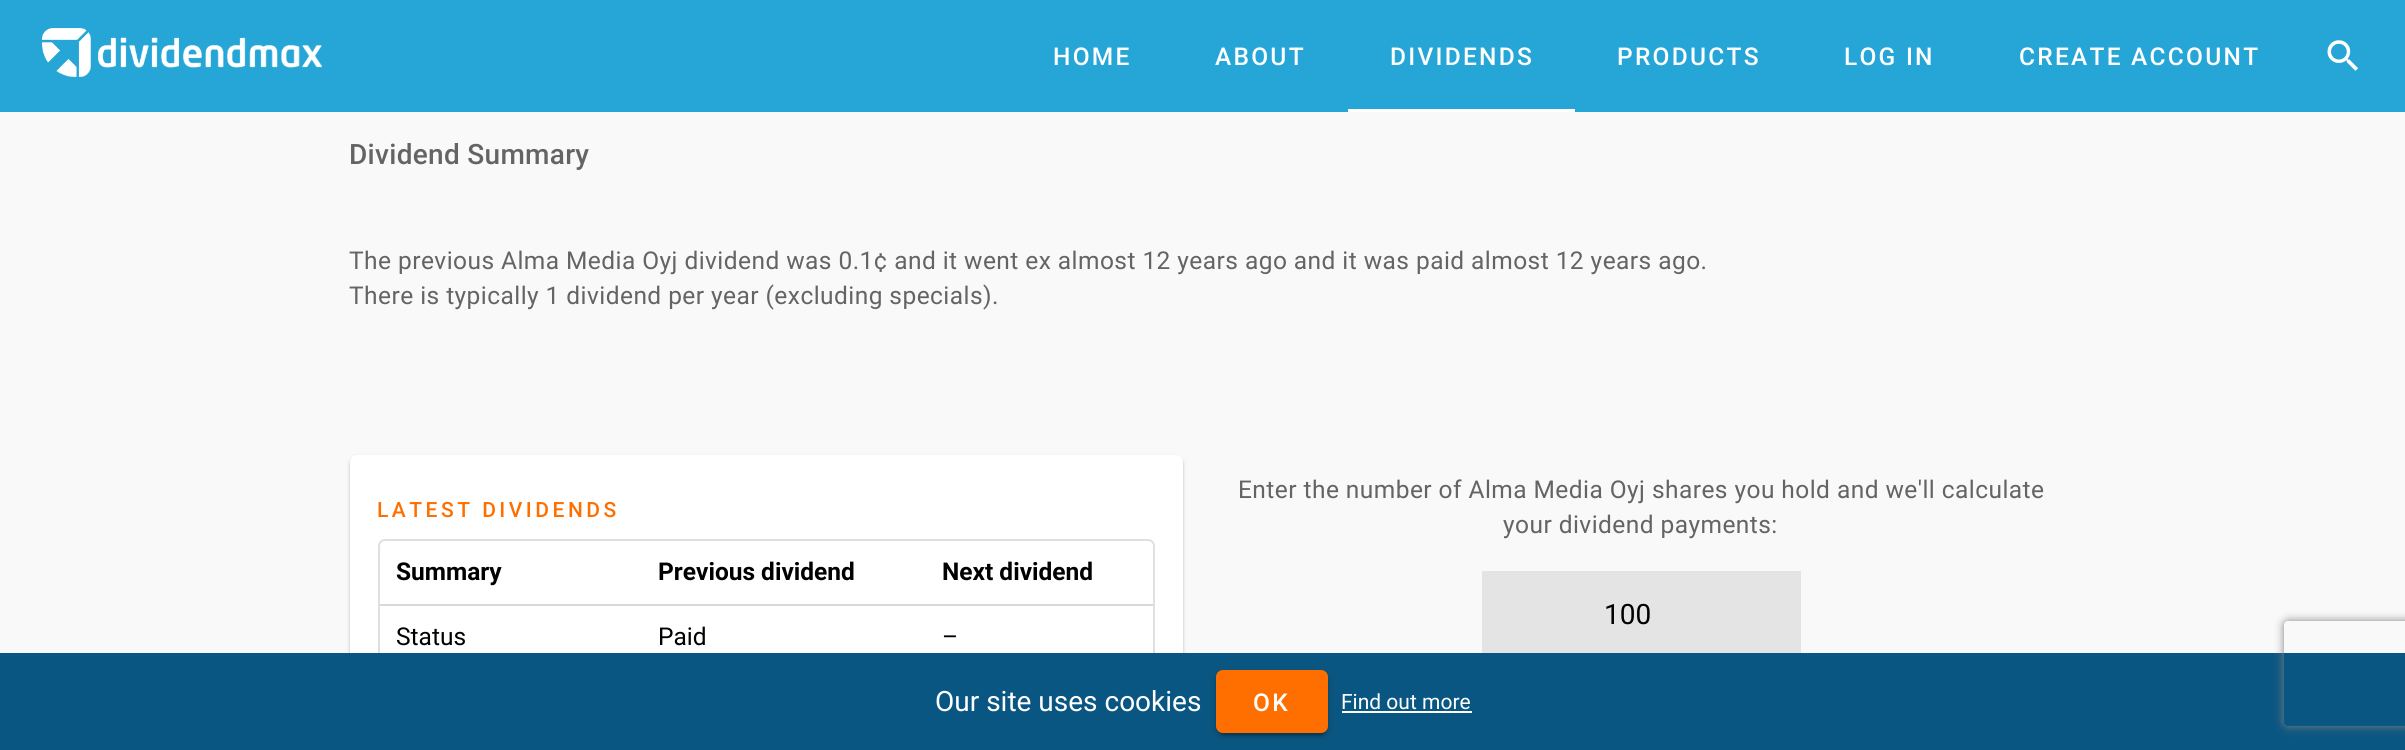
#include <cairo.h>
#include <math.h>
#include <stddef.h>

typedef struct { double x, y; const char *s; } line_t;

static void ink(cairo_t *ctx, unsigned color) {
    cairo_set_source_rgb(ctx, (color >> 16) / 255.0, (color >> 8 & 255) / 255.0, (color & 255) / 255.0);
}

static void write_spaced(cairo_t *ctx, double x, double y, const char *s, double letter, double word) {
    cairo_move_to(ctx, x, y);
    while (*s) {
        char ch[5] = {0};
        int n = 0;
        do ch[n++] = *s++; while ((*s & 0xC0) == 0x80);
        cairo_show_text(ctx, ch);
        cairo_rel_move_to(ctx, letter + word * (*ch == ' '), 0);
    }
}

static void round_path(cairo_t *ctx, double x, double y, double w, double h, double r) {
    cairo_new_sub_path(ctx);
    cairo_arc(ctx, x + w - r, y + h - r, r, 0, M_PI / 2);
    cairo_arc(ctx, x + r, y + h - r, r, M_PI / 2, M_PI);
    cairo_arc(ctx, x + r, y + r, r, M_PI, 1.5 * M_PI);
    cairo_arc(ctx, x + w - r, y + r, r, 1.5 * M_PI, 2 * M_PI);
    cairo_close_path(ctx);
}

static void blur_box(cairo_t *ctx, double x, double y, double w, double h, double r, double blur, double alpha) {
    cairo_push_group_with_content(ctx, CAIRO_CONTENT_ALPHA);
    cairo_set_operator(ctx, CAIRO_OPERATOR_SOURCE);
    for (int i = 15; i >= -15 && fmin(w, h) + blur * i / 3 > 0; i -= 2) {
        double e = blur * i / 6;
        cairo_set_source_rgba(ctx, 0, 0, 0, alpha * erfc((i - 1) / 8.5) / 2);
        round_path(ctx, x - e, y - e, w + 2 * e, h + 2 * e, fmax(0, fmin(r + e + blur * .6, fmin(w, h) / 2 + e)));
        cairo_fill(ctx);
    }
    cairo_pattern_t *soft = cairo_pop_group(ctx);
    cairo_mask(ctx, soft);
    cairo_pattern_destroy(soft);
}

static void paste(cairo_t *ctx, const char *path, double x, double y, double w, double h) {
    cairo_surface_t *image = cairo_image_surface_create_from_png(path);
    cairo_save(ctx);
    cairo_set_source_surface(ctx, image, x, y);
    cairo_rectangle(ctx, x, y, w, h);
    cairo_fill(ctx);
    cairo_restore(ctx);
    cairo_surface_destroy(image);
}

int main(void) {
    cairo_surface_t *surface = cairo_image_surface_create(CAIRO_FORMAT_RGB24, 2405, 750);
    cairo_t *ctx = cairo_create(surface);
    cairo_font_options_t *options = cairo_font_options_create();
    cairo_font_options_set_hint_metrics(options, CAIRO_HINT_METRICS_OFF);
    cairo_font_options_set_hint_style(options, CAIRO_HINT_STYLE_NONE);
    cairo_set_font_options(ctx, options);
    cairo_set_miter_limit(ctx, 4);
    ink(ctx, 0xF9F9F9);
    cairo_paint(ctx);
    ink(ctx, 0x26A6D7);
    cairo_rectangle(ctx, 0, 0, 2405, 112);
    cairo_fill(ctx);
    paste(ctx, "media/1.png", 42, 28, 280, 49);
    cairo_select_font_face(ctx, "Roboto Medium", CAIRO_FONT_SLANT_NORMAL, CAIRO_FONT_WEIGHT_NORMAL);
    cairo_set_font_size(ctx, 24.5);
    ink(ctx, 0xFFFFFF);
    {
        static const line_t items[] = {
            {1053, 65, "HOME"},
            {1215, 65, "ABOUT"},
            {1390, 65, "DIVIDENDS"},
        };
        for (size_t i = 0; i < sizeof items / sizeof *items; i++) {
            write_spaced(ctx, items[i].x, items[i].y, items[i].s, 2.25, 0);
        }
    }
    cairo_rectangle(ctx, 1348, 109, 227, 3);
    cairo_fill(ctx);
    {
        static const line_t items[] = {
            {1617, 65, "PRODUCTS"},
            {1844, 65, "LOG IN"},
            {2019, 65, "CREATE ACCOUNT"},
        };
        for (size_t i = 0; i < sizeof items / sizeof *items; i++) {
            write_spaced(ctx, items[i].x, items[i].y, items[i].s, 2.25, 0);
        }
    }
    paste(ctx, "media/2.png", 2327, 40, 31, 31);
    cairo_set_font_size(ctx, 28);
    ink(ctx, 0x646464);
    write_spaced(ctx, 349, 164, "Dividend Summary", 0.3, 0);
    cairo_select_font_face(ctx, "Roboto", CAIRO_FONT_SLANT_NORMAL, CAIRO_FONT_WEIGHT_NORMAL);
    cairo_set_font_size(ctx, 24.5);
    write_spaced(ctx, 349, 269, "The previous Alma Media Oyj dividend was 0.1¢ and it went ex almost 12 years ago and it was paid almost 12 years ago.", 0.44, 0);
    write_spaced(ctx, 349, 304, "There is typically 1 dividend per year (excluding specials).", 0.44, 0);
    ink(ctx, 0x000000);
    blur_box(ctx, 350, 457, 833, 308, 7, 2.5, 0.12);
    blur_box(ctx, 350, 457, 833, 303, 7, 1, 0.14);
    ink(ctx, 0xFFFFFF);
    round_path(ctx, 350, 455, 833, 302, 7);
    cairo_fill(ctx);
    cairo_select_font_face(ctx, "Roboto Medium", CAIRO_FONT_SLANT_NORMAL, CAIRO_FONT_WEIGHT_NORMAL);
    cairo_set_font_size(ctx, 21);
    ink(ctx, 0xFF6F00);
    write_spaced(ctx, 377, 517, "LATEST DIVIDENDS", 3.5, 0);
    round_path(ctx, 379, 540, 775, 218, 6);
    ink(ctx, 0xE0E0E0);
    cairo_stroke(ctx);
    cairo_select_font_face(ctx, "Roboto", CAIRO_FONT_SLANT_NORMAL, CAIRO_FONT_WEIGHT_BOLD);
    cairo_set_font_size(ctx, 24.5);
    ink(ctx, 0x000000);
    cairo_move_to(ctx, 396, 580);
    cairo_show_text(ctx, "Summary");
    cairo_move_to(ctx, 658, 580);
    cairo_show_text(ctx, "Previous dividend");
    ink(ctx, 0xD8D8D8);
    cairo_rectangle(ctx, 380, 604, 773, 2);
    cairo_fill(ctx);
    ink(ctx, 0x000000);
    cairo_move_to(ctx, 942, 580);
    cairo_show_text(ctx, "Next dividend");
    cairo_select_font_face(ctx, "Roboto", CAIRO_FONT_SLANT_NORMAL, CAIRO_FONT_WEIGHT_NORMAL);
    {
        static const line_t items[] = {
            {396, 645, "Status"},
            {658, 645, "Paid"},
            {942, 645, "–"},
        };
        for (size_t i = 0; i < sizeof items / sizeof *items; i++) {
            cairo_move_to(ctx, items[i].x, items[i].y);
            cairo_show_text(ctx, items[i].s);
        }
    }
    ink(ctx, 0x646464);
    write_spaced(ctx, 1238, 498, "Enter the number of Alma Media Oyj shares you hold and we'll calculate", 0.44, 0);
    write_spaced(ctx, 1503, 533, "your dividend payments:", 0.44, 0);
    ink(ctx, 0xE4E4E4);
    cairo_rectangle(ctx, 1482, 571, 319, 82);
    cairo_fill(ctx);
    cairo_set_font_size(ctx, 28);
    ink(ctx, 0x000000);
    cairo_move_to(ctx, 1604, 624);
    cairo_show_text(ctx, "100");
    ink(ctx, 0x0A5682);
    cairo_rectangle(ctx, 0, 653, 2405, 97);
    cairo_fill(ctx);
    ink(ctx, 0xFFFFFF);
    cairo_move_to(ctx, 935, 711);
    cairo_show_text(ctx, "Our site uses cookies");
    cairo_rectangle(ctx, 1342, 711, 130, 2);
    cairo_fill(ctx);
    ink(ctx, 0x000000);
    blur_box(ctx, 1216, 672, 112, 63, 7, 4.5, 0.12);
    blur_box(ctx, 1216, 674, 112, 63, 7, 2, 0.14);
    blur_box(ctx, 1220, 679, 105, 56, 4, 1, 0.2);
    ink(ctx, 0xFF6F00);
    round_path(ctx, 1216, 670, 112, 63, 7);
    cairo_fill(ctx);
    cairo_select_font_face(ctx, "Roboto Medium", CAIRO_FONT_SLANT_NORMAL, CAIRO_FONT_WEIGHT_NORMAL);
    cairo_set_font_size(ctx, 24.5);
    ink(ctx, 0xFFFFFF);
    write_spaced(ctx, 1253, 711, "OK", 2.25, 0);
    cairo_select_font_face(ctx, "Roboto", CAIRO_FONT_SLANT_NORMAL, CAIRO_FONT_WEIGHT_NORMAL);
    cairo_set_font_size(ctx, 21);
    cairo_move_to(ctx, 1341, 709);
    cairo_show_text(ctx, "Find out more");
    cairo_save(ctx);
    cairo_set_fill_rule(ctx, CAIRO_FILL_RULE_EVEN_ODD);
    cairo_new_path(ctx);
    cairo_move_to(ctx, 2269, 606);
    cairo_line_to(ctx, 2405, 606);
    cairo_line_to(ctx, 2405, 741);
    cairo_line_to(ctx, 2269, 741);
    cairo_close_path(ctx);
    cairo_move_to(ctx, 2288, 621);
    cairo_line_to(ctx, 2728, 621);
    cairo_curve_to(ctx, 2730, 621, 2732, 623, 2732, 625);
    cairo_line_to(ctx, 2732, 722);
    cairo_curve_to(ctx, 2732, 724, 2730, 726, 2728, 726);
    cairo_line_to(ctx, 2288, 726);
    cairo_curve_to(ctx, 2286, 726, 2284, 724, 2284, 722);
    cairo_line_to(ctx, 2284, 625);
    cairo_curve_to(ctx, 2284, 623, 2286, 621, 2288, 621);
    cairo_close_path(ctx);
    cairo_clip(ctx);
    ink(ctx, 0x808080);
    blur_box(ctx, 2284, 621, 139, 105, 4, 4.5, 1);
    cairo_restore(ctx);
    cairo_surface_write_to_png(surface, "image.png");
    cairo_font_options_destroy(options);
    cairo_destroy(ctx);
    cairo_surface_destroy(surface);
    return 0;
}
